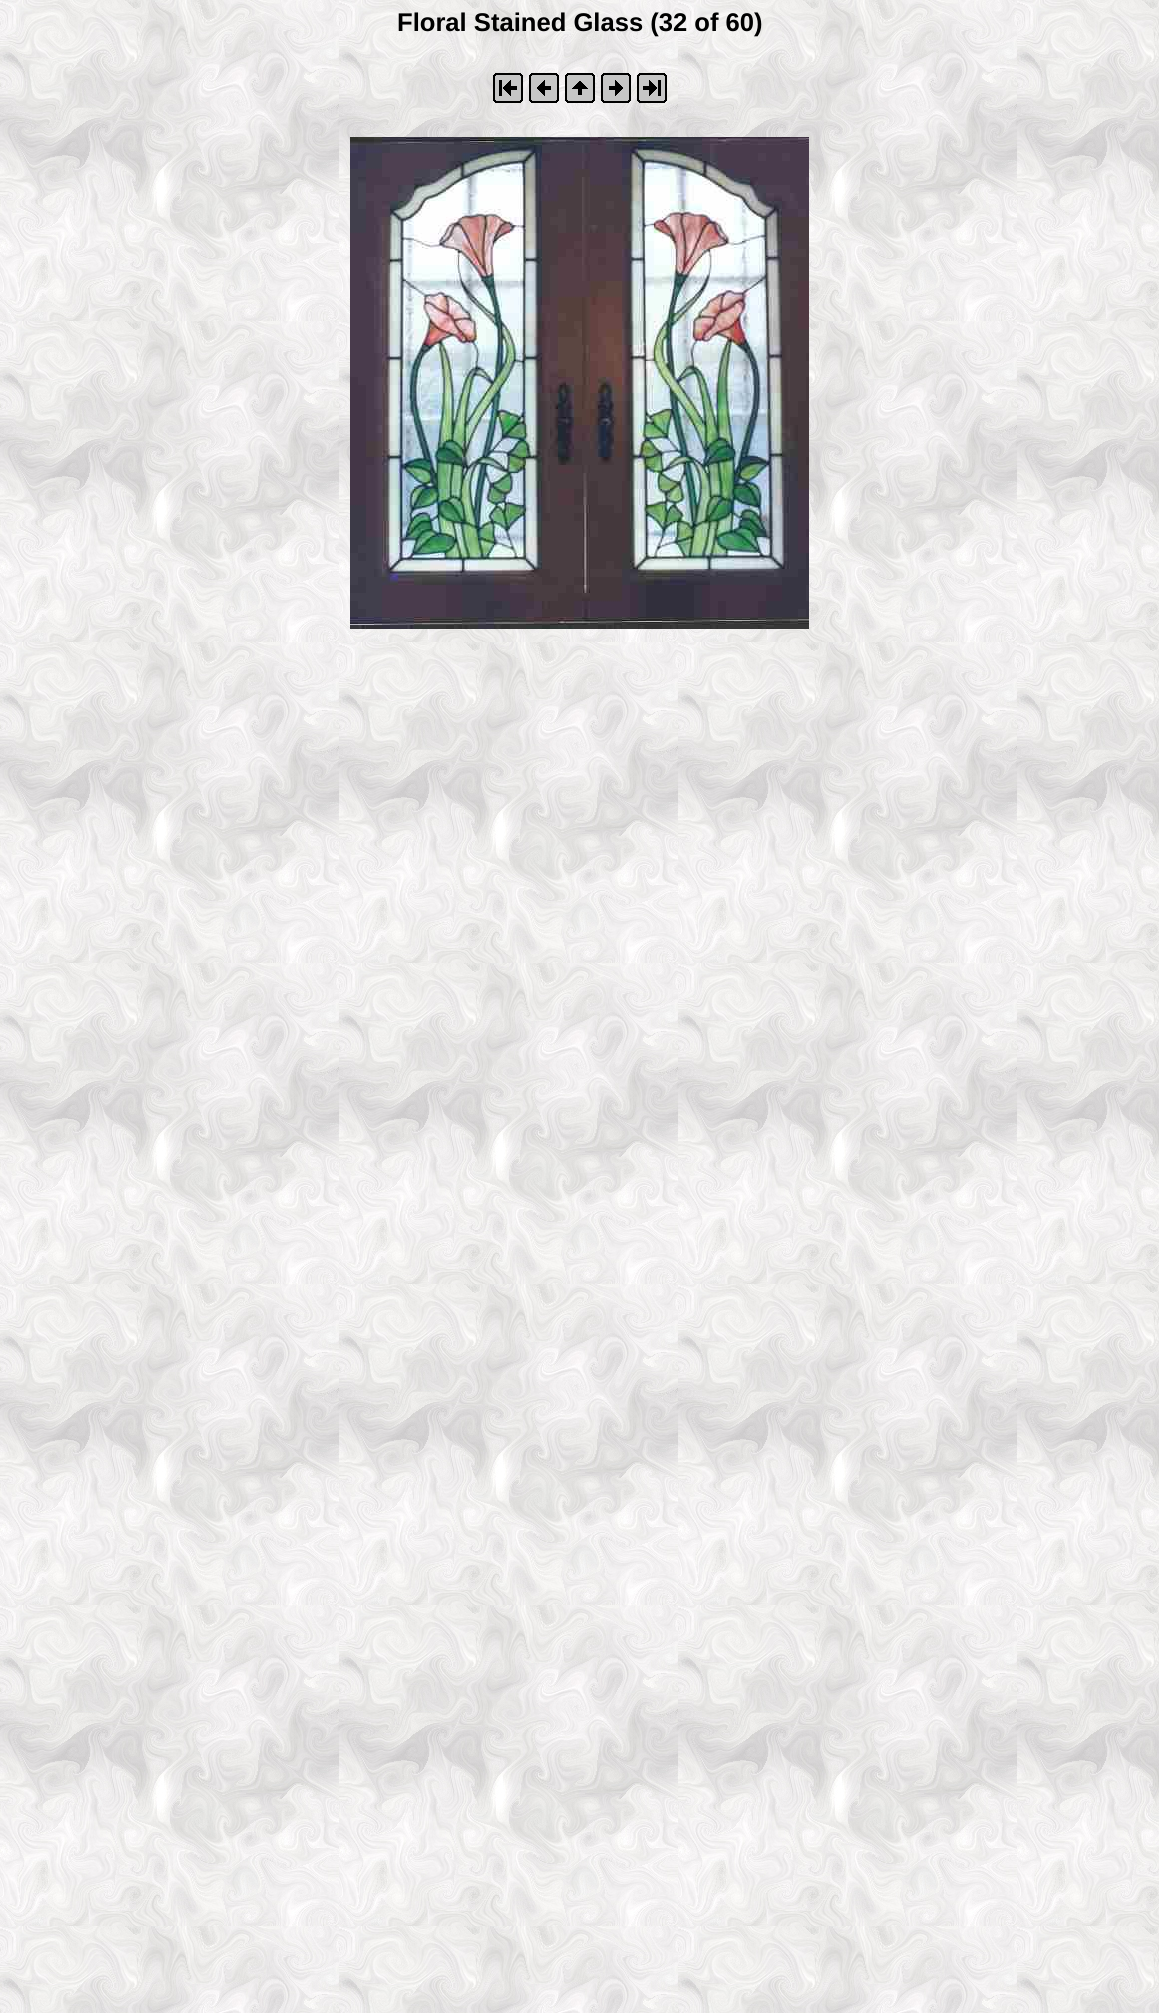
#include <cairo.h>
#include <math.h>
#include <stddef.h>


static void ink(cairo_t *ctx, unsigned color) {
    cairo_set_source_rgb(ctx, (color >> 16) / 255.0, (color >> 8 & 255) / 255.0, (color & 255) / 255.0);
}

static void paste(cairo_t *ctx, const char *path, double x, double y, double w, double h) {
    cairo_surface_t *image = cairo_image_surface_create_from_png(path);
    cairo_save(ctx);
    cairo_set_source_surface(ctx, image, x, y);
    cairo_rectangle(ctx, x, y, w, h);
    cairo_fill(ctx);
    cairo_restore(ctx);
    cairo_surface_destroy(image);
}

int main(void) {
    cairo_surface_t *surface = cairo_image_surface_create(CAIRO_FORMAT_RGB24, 1159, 2013);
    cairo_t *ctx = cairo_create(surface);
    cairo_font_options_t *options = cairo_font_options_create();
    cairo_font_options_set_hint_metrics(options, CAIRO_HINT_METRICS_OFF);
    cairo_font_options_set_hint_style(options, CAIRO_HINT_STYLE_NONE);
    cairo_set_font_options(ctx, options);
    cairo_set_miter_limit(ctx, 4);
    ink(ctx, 0xFFFFFF);
    cairo_paint(ctx);
    paste(ctx, "media/1.png", 0, 0, 1159, 2013);
    cairo_select_font_face(ctx, "Liberation Sans", CAIRO_FONT_SLANT_NORMAL, CAIRO_FONT_WEIGHT_BOLD);
    cairo_set_font_size(ctx, 25.6);
    ink(ctx, 0x000000);
    cairo_move_to(ctx, 397, 31);
    cairo_show_text(ctx, "Floral Stained Glass (32 of 60)");
    paste(ctx, "media/2.png", 493, 73, 30, 30);
    paste(ctx, "media/3.png", 529, 73, 30, 30);
    paste(ctx, "media/4.png", 565, 73, 30, 30);
    paste(ctx, "media/5.png", 601, 73, 30, 30);
    paste(ctx, "media/6.png", 637, 73, 30, 30);
    paste(ctx, "media/7.png", 350, 137, 459, 492);
    cairo_surface_write_to_png(surface, "image.png");
    cairo_font_options_destroy(options);
    cairo_destroy(ctx);
    cairo_surface_destroy(surface);
    return 0;
}
